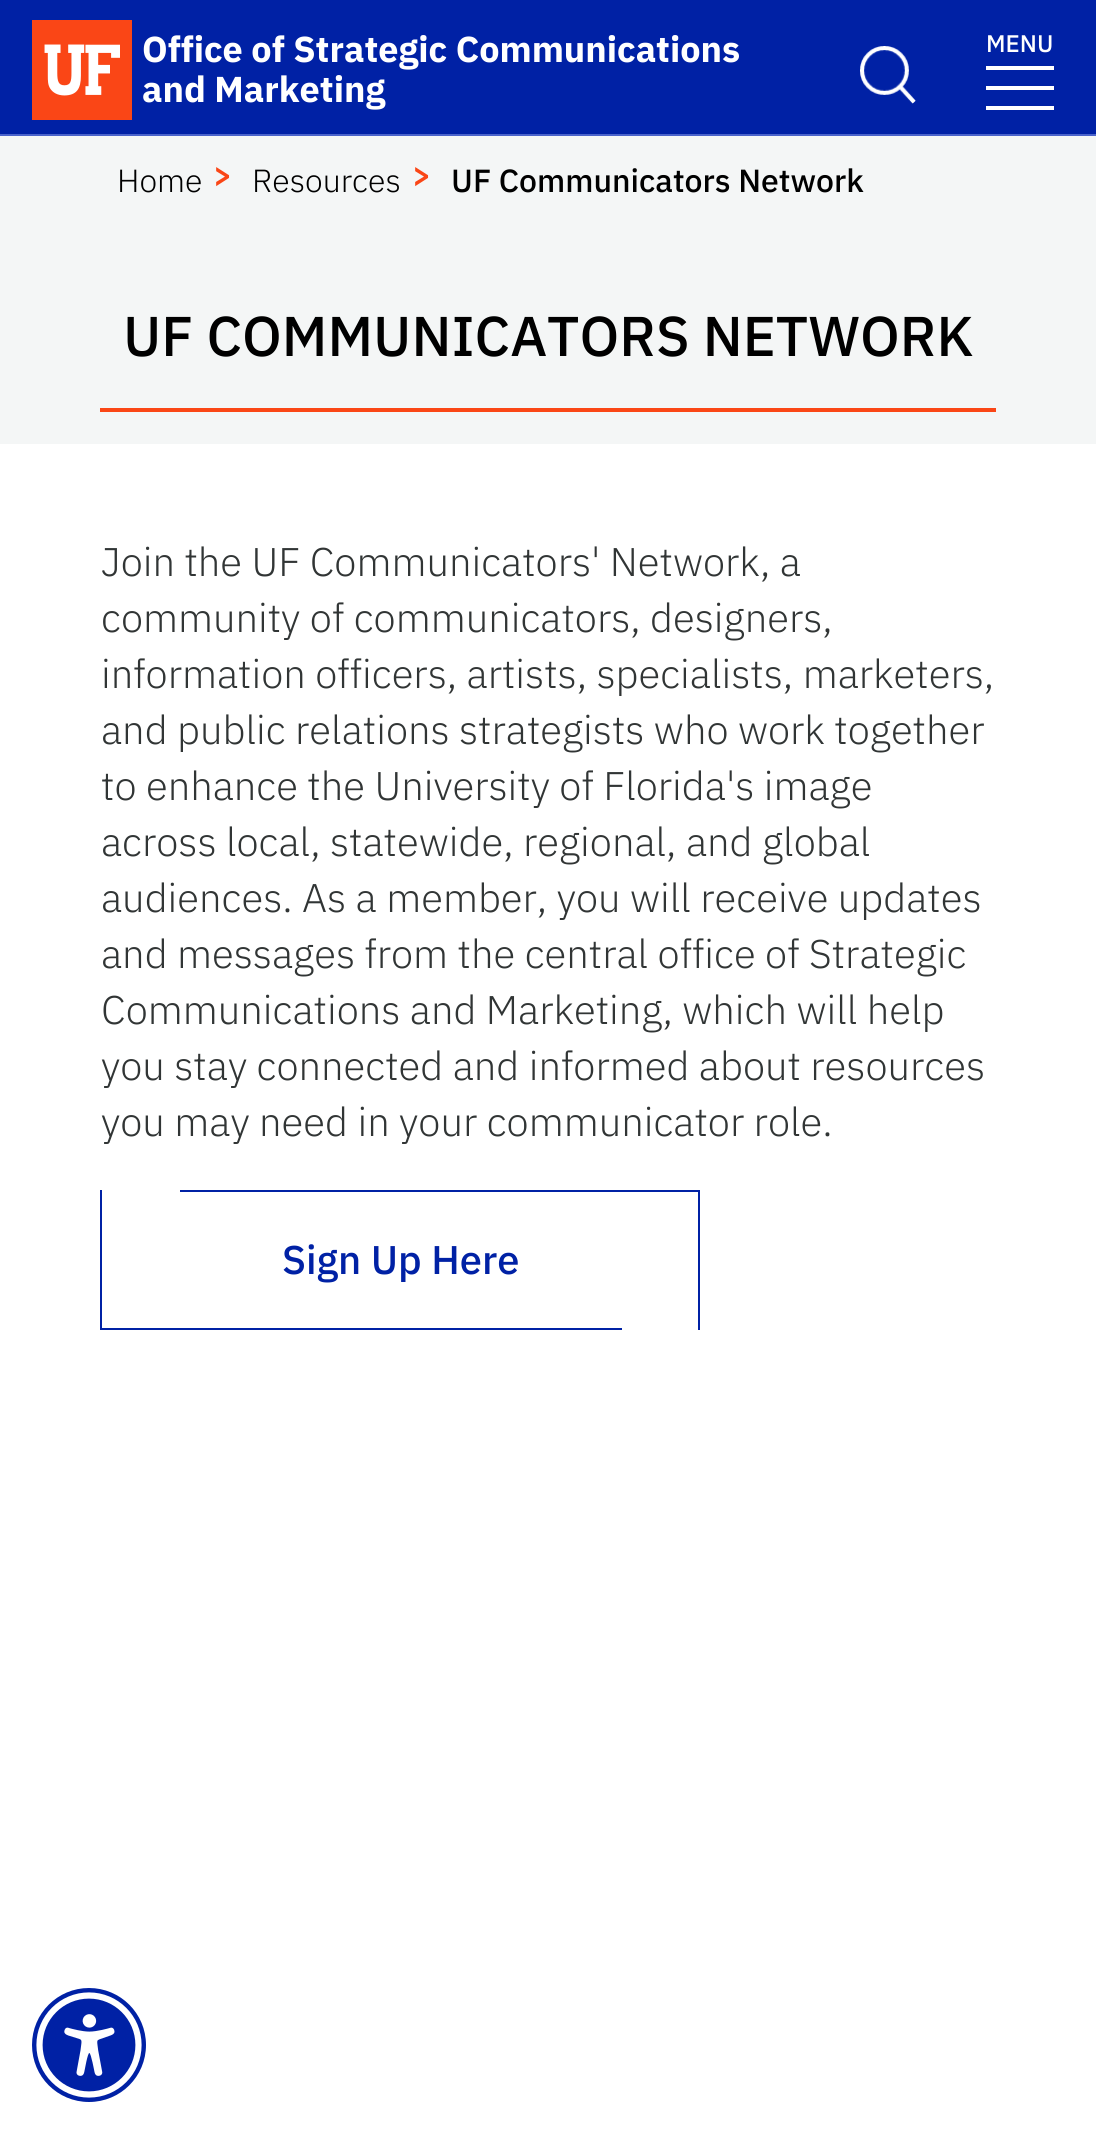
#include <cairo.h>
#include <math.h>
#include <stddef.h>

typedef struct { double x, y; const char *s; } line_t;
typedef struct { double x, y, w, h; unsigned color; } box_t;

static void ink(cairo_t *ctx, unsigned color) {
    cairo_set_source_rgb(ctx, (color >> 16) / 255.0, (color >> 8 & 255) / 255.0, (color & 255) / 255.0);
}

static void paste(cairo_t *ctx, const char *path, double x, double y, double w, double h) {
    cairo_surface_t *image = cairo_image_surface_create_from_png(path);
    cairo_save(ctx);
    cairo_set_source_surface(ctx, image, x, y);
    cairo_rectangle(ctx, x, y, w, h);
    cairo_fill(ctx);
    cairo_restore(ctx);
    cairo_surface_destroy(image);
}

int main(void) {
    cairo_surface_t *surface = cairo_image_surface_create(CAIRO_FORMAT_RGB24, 1096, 2133);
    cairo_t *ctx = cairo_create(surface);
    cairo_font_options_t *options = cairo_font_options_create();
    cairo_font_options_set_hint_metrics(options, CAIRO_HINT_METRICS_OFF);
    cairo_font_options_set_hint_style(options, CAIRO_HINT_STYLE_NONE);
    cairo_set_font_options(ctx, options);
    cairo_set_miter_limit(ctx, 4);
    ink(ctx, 0xFFFFFF);
    cairo_paint(ctx);
    ink(ctx, 0x0021A5);
    cairo_rectangle(ctx, 0, 0, 1096, 134);
    cairo_fill(ctx);
    ink(ctx, 0x4A63CB);
    cairo_rectangle(ctx, 0, 134, 1096, 2);
    cairo_fill(ctx);
    paste(ctx, "media/1.png", 32, 20, 100, 100);
    cairo_select_font_face(ctx, "IBM Plex Sans", CAIRO_FONT_SLANT_NORMAL, CAIRO_FONT_WEIGHT_BOLD);
    cairo_set_font_size(ctx, 36);
    ink(ctx, 0xFFFFFF);
    cairo_move_to(ctx, 142, 62);
    cairo_show_text(ctx, "Office of Strategic Communications");
    cairo_move_to(ctx, 142, 102);
    cairo_show_text(ctx, "and Marketing");
    cairo_select_font_face(ctx, "IBM Plex Sans Medium", CAIRO_FONT_SLANT_NORMAL, CAIRO_FONT_WEIGHT_NORMAL);
    cairo_set_font_size(ctx, 24);
    cairo_move_to(ctx, 986, 52);
    cairo_show_text(ctx, "MENU");
    {
        static const box_t items[] = {
            {986, 86, 68, 4, 0xFFFFFF},
            {986, 66, 68, 4, 0xFFFFFF},
            {986, 106, 68, 4, 0xFFFFFF},
        };
        for (size_t i = 0; i < sizeof items / sizeof *items; i++) {
            ink(ctx, items[i].color);
            cairo_rectangle(ctx, items[i].x, items[i].y, items[i].w, items[i].h);
            cairo_fill(ctx);
        }
    }
    paste(ctx, "media/2.png", 860, 46, 56, 58);
    ink(ctx, 0xF4F6F6);
    cairo_rectangle(ctx, 0, 136, 1096, 308);
    cairo_fill(ctx);
    cairo_select_font_face(ctx, "IBM Plex Sans Light", CAIRO_FONT_SLANT_NORMAL, CAIRO_FONT_WEIGHT_NORMAL);
    cairo_set_font_size(ctx, 32);
    ink(ctx, 0x000000);
    cairo_move_to(ctx, 117, 192);
    cairo_show_text(ctx, "Home");
    cairo_select_font_face(ctx, "IBM Plex Sans SemiBold", CAIRO_FONT_SLANT_NORMAL, CAIRO_FONT_WEIGHT_NORMAL);
    ink(ctx, 0xFA4616);
    cairo_move_to(ctx, 213, 186);
    cairo_show_text(ctx, ">");
    cairo_select_font_face(ctx, "IBM Plex Sans Light", CAIRO_FONT_SLANT_NORMAL, CAIRO_FONT_WEIGHT_NORMAL);
    ink(ctx, 0x000000);
    cairo_move_to(ctx, 252, 192);
    cairo_show_text(ctx, "Resources");
    cairo_select_font_face(ctx, "IBM Plex Sans SemiBold", CAIRO_FONT_SLANT_NORMAL, CAIRO_FONT_WEIGHT_NORMAL);
    ink(ctx, 0xFA4616);
    cairo_move_to(ctx, 412, 186);
    cairo_show_text(ctx, ">");
    cairo_select_font_face(ctx, "IBM Plex Sans Medium", CAIRO_FONT_SLANT_NORMAL, CAIRO_FONT_WEIGHT_NORMAL);
    ink(ctx, 0x000000);
    cairo_move_to(ctx, 451, 192);
    cairo_show_text(ctx, "UF Communicators Network");
    cairo_set_font_size(ctx, 56);
    cairo_move_to(ctx, 123, 356);
    cairo_show_text(ctx, "UF COMMUNICATORS NETWORK");
    ink(ctx, 0xFA4616);
    cairo_rectangle(ctx, 100, 408, 896, 4);
    cairo_fill(ctx);
    cairo_select_font_face(ctx, "IBM Plex Sans Light", CAIRO_FONT_SLANT_NORMAL, CAIRO_FONT_WEIGHT_NORMAL);
    cairo_set_font_size(ctx, 40);
    ink(ctx, 0x313535);
    {
        static const line_t items[] = {
            {101, 576, "Join the UF Communicators' Network, a"},
            {101, 632, "community of communicators, designers,"},
            {101, 688, "information officers, artists, specialists, marketers,"},
            {101, 744, "and public relations strategists who work together"},
            {101, 800, "to enhance the University of Florida's image"},
            {101, 856, "across local, statewide, regional, and global"},
            {101, 912, "audiences. As a member, you will receive updates"},
            {101, 968, "and messages from the central office of Strategic"},
            {101, 1024, "Communications and Marketing, which will help"},
            {101, 1080, "you stay connected and informed about resources"},
            {101, 1136, "you may need in your communicator role."},
        };
        for (size_t i = 0; i < sizeof items / sizeof *items; i++) {
            cairo_move_to(ctx, items[i].x, items[i].y);
            cairo_show_text(ctx, items[i].s);
        }
    }
    {
        static const box_t items[] = {
            {698, 1190, 2, 140, 0x0021A5},
            {100, 1190, 2, 140, 0x0021A5},
            {180, 1190, 518, 2, 0x0021A5},
        };
        for (size_t i = 0; i < sizeof items / sizeof *items; i++) {
            ink(ctx, items[i].color);
            cairo_rectangle(ctx, items[i].x, items[i].y, items[i].w, items[i].h);
            cairo_fill(ctx);
        }
    }
    cairo_select_font_face(ctx, "IBM Plex Sans Medium", CAIRO_FONT_SLANT_NORMAL, CAIRO_FONT_WEIGHT_NORMAL);
    cairo_move_to(ctx, 282, 1274);
    cairo_show_text(ctx, "Sign Up Here");
    cairo_rectangle(ctx, 102, 1328, 520, 2);
    cairo_fill(ctx);
    cairo_arc(ctx, 89, 2045, 57, 0, 2 * M_PI);
    cairo_fill(ctx);
    paste(ctx, "media/3.png", 36, 1992, 106, 106);
    cairo_surface_write_to_png(surface, "image.png");
    cairo_font_options_destroy(options);
    cairo_destroy(ctx);
    cairo_surface_destroy(surface);
    return 0;
}
